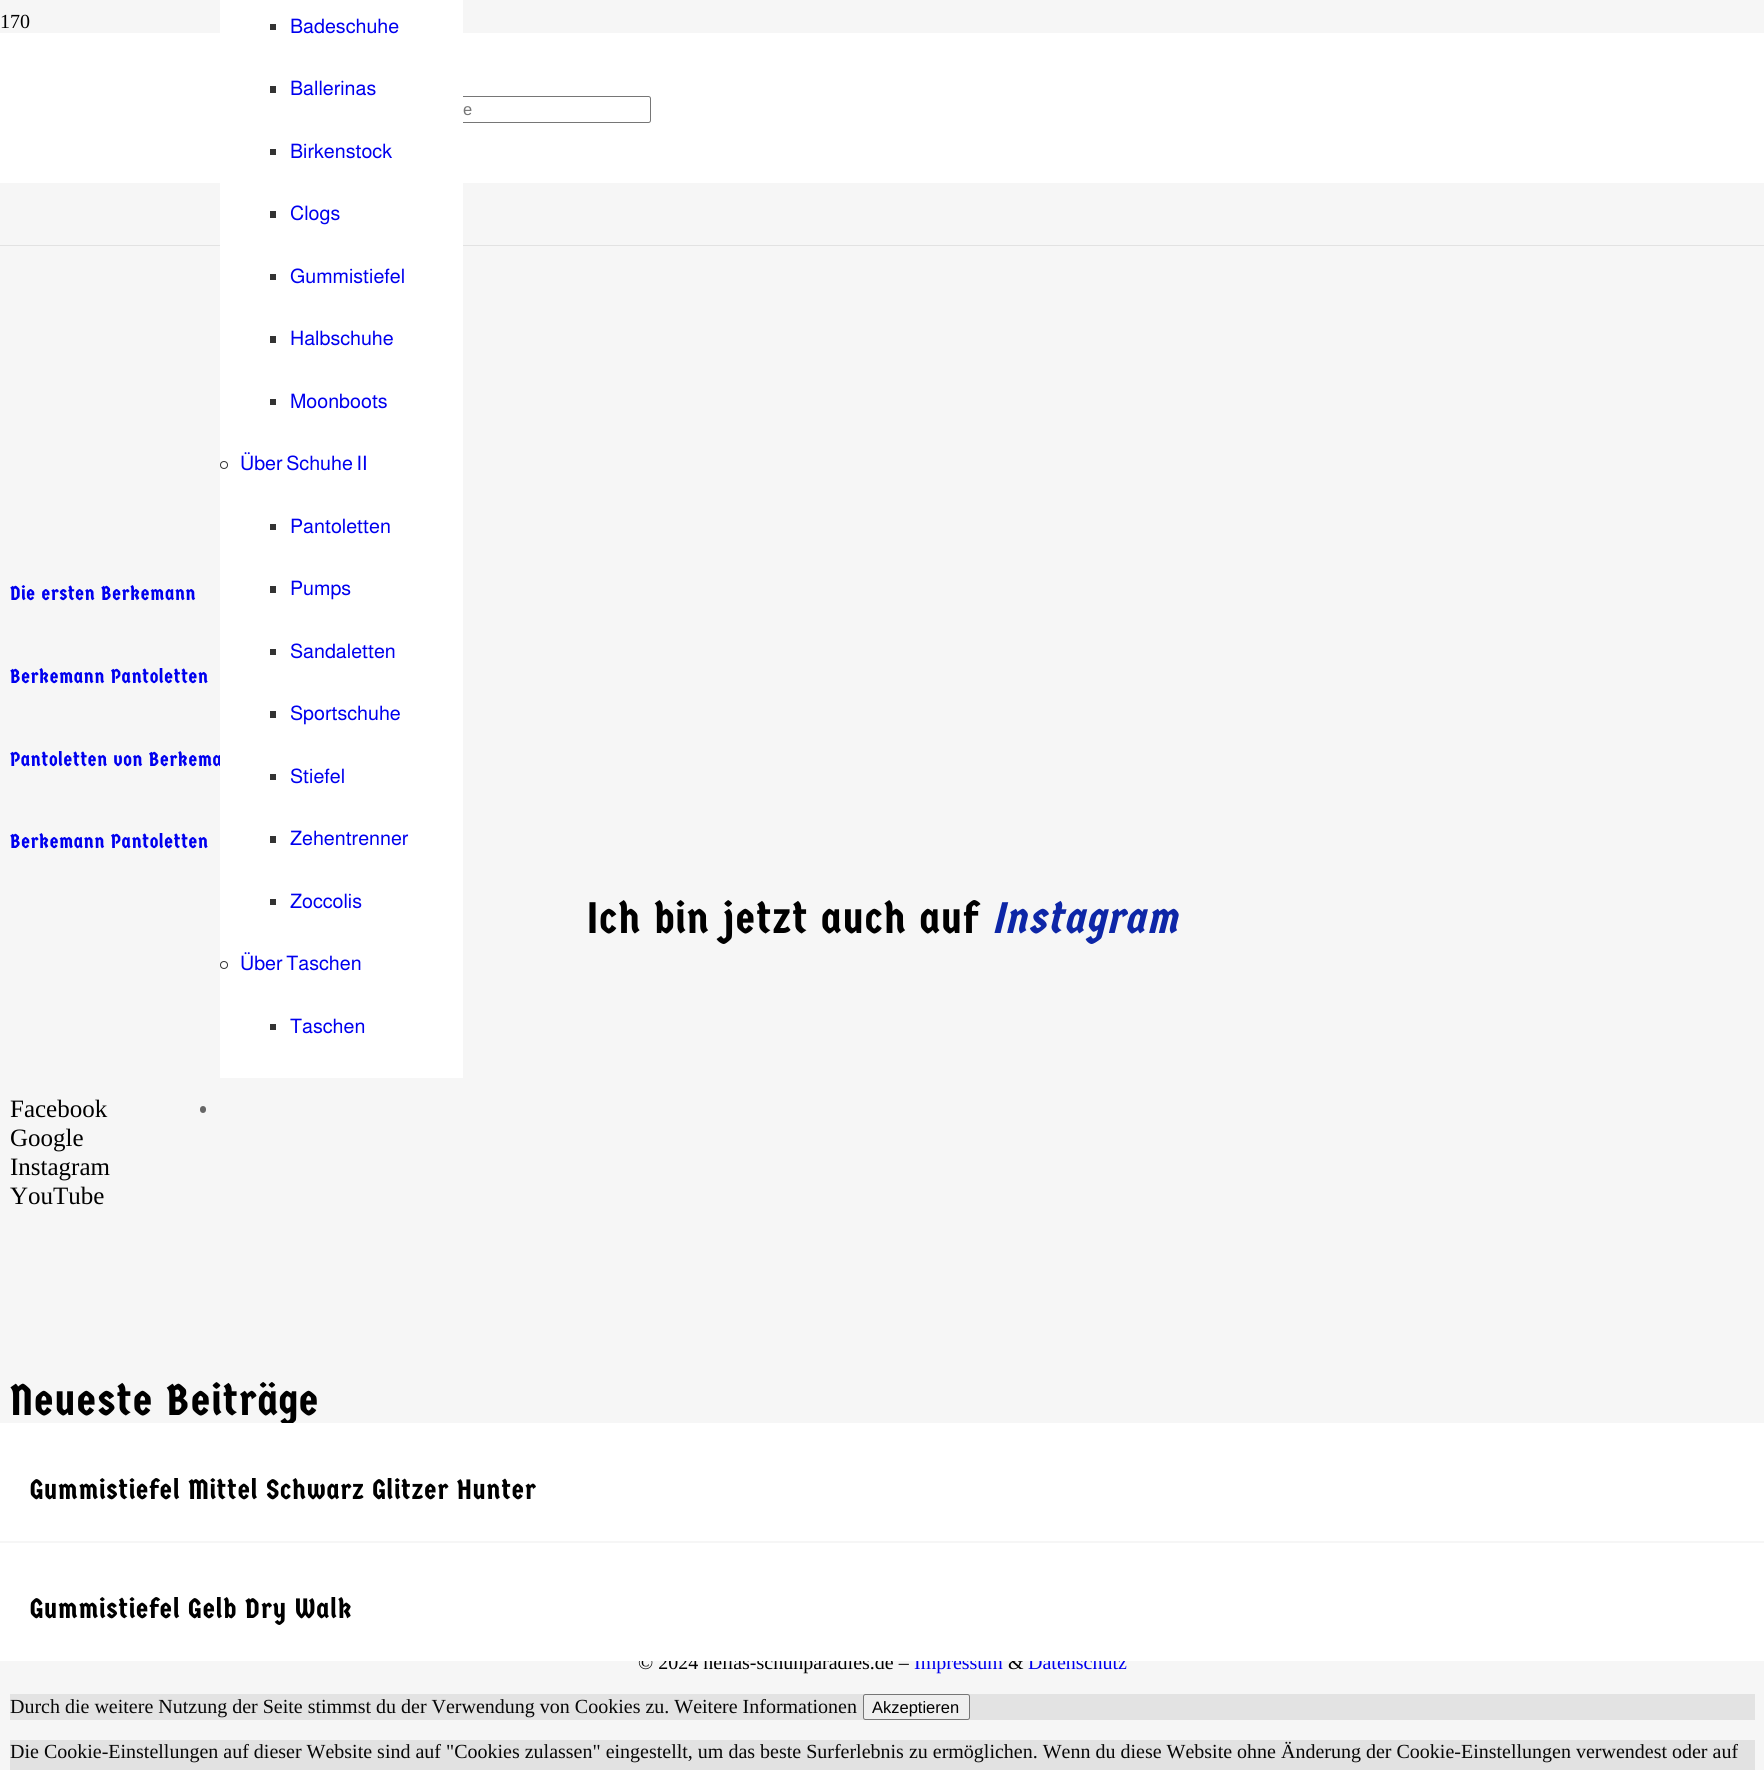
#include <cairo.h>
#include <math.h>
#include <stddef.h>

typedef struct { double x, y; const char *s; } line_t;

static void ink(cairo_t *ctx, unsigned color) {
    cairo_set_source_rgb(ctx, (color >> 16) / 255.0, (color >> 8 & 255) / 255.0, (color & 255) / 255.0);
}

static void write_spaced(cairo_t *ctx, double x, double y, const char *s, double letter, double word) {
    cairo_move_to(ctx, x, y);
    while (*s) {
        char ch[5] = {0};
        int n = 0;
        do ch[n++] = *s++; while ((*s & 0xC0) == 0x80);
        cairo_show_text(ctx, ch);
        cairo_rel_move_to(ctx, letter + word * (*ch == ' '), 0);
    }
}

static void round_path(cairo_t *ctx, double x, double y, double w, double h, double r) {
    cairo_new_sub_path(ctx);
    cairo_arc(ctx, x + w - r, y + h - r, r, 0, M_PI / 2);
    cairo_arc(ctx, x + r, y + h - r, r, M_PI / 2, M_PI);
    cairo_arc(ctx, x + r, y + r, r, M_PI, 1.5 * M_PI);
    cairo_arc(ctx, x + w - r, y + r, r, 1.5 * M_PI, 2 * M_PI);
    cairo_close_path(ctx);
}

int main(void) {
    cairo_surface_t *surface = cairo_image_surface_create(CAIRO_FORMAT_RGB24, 1764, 1770);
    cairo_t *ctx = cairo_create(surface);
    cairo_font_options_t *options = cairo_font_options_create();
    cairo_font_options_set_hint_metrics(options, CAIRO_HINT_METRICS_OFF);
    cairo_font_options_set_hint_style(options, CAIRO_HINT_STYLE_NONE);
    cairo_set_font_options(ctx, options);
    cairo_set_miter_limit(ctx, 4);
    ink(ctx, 0xF6F6F6);
    cairo_paint(ctx);
    cairo_select_font_face(ctx, "Liberation Serif", CAIRO_FONT_SLANT_NORMAL, CAIRO_FONT_WEIGHT_NORMAL);
    cairo_set_font_size(ctx, 20);
    ink(ctx, 0x000000);
    cairo_move_to(ctx, 0, 28);
    cairo_show_text(ctx, "170");
    ink(ctx, 0xE2E2E2);
    cairo_rectangle(ctx, 0, 245, 1764, 1);
    cairo_fill(ctx);
    ink(ctx, 0xFFFFFF);
    cairo_rectangle(ctx, 0, 33, 1764, 150);
    cairo_fill(ctx);
    round_path(ctx, 420.5, 96.5, 230, 26, 2);
    ink(ctx, 0x767676);
    cairo_set_line_width(ctx, 1);
    cairo_stroke(ctx);
    cairo_select_font_face(ctx, "Germania One", CAIRO_FONT_SLANT_NORMAL, CAIRO_FONT_WEIGHT_NORMAL);
    ink(ctx, 0x0000EE);
    write_spaced(ctx, 10, 766, "Pantoletten von Berkema", 0.6, 0);
    ink(ctx, 0xFFFFFF);
    cairo_rectangle(ctx, 220, 0, 243, 1078);
    cairo_fill(ctx);
    ink(ctx, 0x333333);
    cairo_rectangle(ctx, 270, 24, 6, 6);
    cairo_fill(ctx);
    cairo_select_font_face(ctx, "Almarai", CAIRO_FONT_SLANT_NORMAL, CAIRO_FONT_WEIGHT_NORMAL);
    ink(ctx, 0x0000EE);
    cairo_move_to(ctx, 290, 33);
    cairo_show_text(ctx, "Badeschuhe");
    ink(ctx, 0x333333);
    cairo_rectangle(ctx, 270, 86, 6, 7);
    cairo_fill(ctx);
    ink(ctx, 0x0000EE);
    cairo_move_to(ctx, 290, 95);
    cairo_show_text(ctx, "Ballerinas");
    ink(ctx, 0x333333);
    cairo_rectangle(ctx, 270, 149, 6, 6);
    cairo_fill(ctx);
    ink(ctx, 0x0000EE);
    cairo_move_to(ctx, 290, 158);
    cairo_show_text(ctx, "Birkenstock");
    ink(ctx, 0x333333);
    cairo_rectangle(ctx, 270, 211, 6, 7);
    cairo_fill(ctx);
    ink(ctx, 0x0000EE);
    cairo_move_to(ctx, 290, 220);
    cairo_show_text(ctx, "Clogs");
    ink(ctx, 0x333333);
    cairo_rectangle(ctx, 270, 274, 6, 6);
    cairo_fill(ctx);
    ink(ctx, 0x0000EE);
    cairo_move_to(ctx, 290, 283);
    cairo_show_text(ctx, "Gummistiefel");
    ink(ctx, 0x333333);
    cairo_rectangle(ctx, 270, 336, 6, 7);
    cairo_fill(ctx);
    ink(ctx, 0x0000EE);
    cairo_move_to(ctx, 290, 345);
    cairo_show_text(ctx, "Halbschuhe");
    ink(ctx, 0x333333);
    cairo_rectangle(ctx, 270, 399, 6, 6);
    cairo_fill(ctx);
    ink(ctx, 0x0000EE);
    cairo_move_to(ctx, 290, 408);
    cairo_show_text(ctx, "Moonboots");
    cairo_new_path(ctx);
    cairo_arc(ctx, 224, 465, 3.5, 0, 2 * M_PI);
    ink(ctx, 0x333333);
    cairo_stroke(ctx);
    ink(ctx, 0x0000EE);
    cairo_move_to(ctx, 240, 470);
    cairo_show_text(ctx, "Über Schuhe II");
    ink(ctx, 0x333333);
    cairo_rectangle(ctx, 270, 524, 6, 6);
    cairo_fill(ctx);
    ink(ctx, 0x0000EE);
    cairo_move_to(ctx, 290, 533);
    cairo_show_text(ctx, "Pantoletten");
    ink(ctx, 0x333333);
    cairo_rectangle(ctx, 270, 586, 6, 7);
    cairo_fill(ctx);
    ink(ctx, 0x0000EE);
    cairo_move_to(ctx, 290, 595);
    cairo_show_text(ctx, "Pumps");
    ink(ctx, 0x333333);
    cairo_rectangle(ctx, 270, 649, 6, 6);
    cairo_fill(ctx);
    ink(ctx, 0x0000EE);
    cairo_move_to(ctx, 290, 658);
    cairo_show_text(ctx, "Sandaletten");
    ink(ctx, 0x333333);
    cairo_rectangle(ctx, 270, 711, 6, 7);
    cairo_fill(ctx);
    ink(ctx, 0x0000EE);
    cairo_move_to(ctx, 290, 720);
    cairo_show_text(ctx, "Sportschuhe");
    ink(ctx, 0x333333);
    cairo_rectangle(ctx, 270, 774, 6, 6);
    cairo_fill(ctx);
    ink(ctx, 0x0000EE);
    cairo_move_to(ctx, 290, 783);
    cairo_show_text(ctx, "Stiefel");
    ink(ctx, 0x333333);
    cairo_rectangle(ctx, 270, 836, 6, 7);
    cairo_fill(ctx);
    ink(ctx, 0x0000EE);
    cairo_move_to(ctx, 290, 845);
    cairo_show_text(ctx, "Zehentrenner");
    ink(ctx, 0x333333);
    cairo_rectangle(ctx, 270, 899, 6, 6);
    cairo_fill(ctx);
    ink(ctx, 0x0000EE);
    cairo_move_to(ctx, 290, 908);
    cairo_show_text(ctx, "Zoccolis");
    cairo_new_path(ctx);
    cairo_arc(ctx, 224, 965, 3.5, 0, 2 * M_PI);
    ink(ctx, 0x333333);
    cairo_stroke(ctx);
    ink(ctx, 0x0000EE);
    cairo_move_to(ctx, 240, 970);
    cairo_show_text(ctx, "Über Taschen");
    ink(ctx, 0x333333);
    cairo_rectangle(ctx, 270, 1024, 6, 6);
    cairo_fill(ctx);
    ink(ctx, 0x0000EE);
    cairo_move_to(ctx, 290, 1033);
    cairo_show_text(ctx, "Taschen");
    ink(ctx, 0x666666);
    round_path(ctx, 200, 1106, 6, 7, 3);
    cairo_fill(ctx);
    cairo_select_font_face(ctx, "Liberation Sans", CAIRO_FONT_SLANT_NORMAL, CAIRO_FONT_WEIGHT_NORMAL);
    cairo_set_font_size(ctx, 16.5);
    ink(ctx, 0x757575);
    cairo_move_to(ctx, 463, 115);
    cairo_show_text(ctx, "e");
    cairo_select_font_face(ctx, "Germania One", CAIRO_FONT_SLANT_NORMAL, CAIRO_FONT_WEIGHT_NORMAL);
    cairo_set_font_size(ctx, 20);
    ink(ctx, 0x0000EE);
    {
        static const line_t items[] = {
            {10, 600, "Die ersten Berkemann"},
            {10, 683, "Berkemann Pantoletten"},
            {10, 848, "Berkemann Pantoletten"},
        };
        for (size_t i = 0; i < sizeof items / sizeof *items; i++) {
            write_spaced(ctx, items[i].x, items[i].y, items[i].s, 0.6, 0);
        }
    }
    cairo_set_font_size(ctx, 44);
    ink(ctx, 0x000000);
    write_spaced(ctx, 587, 933, "Ich bin jetzt auch auf", 1.3, 0);
    cairo_select_font_face(ctx, "Germania One", CAIRO_FONT_SLANT_ITALIC, CAIRO_FONT_WEIGHT_NORMAL);
    ink(ctx, 0x0D26A7);
    write_spaced(ctx, 992, 933, "Instagram", 1.3, 0);
    cairo_select_font_face(ctx, "Germania One", CAIRO_FONT_SLANT_NORMAL, CAIRO_FONT_WEIGHT_NORMAL);
    ink(ctx, 0x000000);
    write_spaced(ctx, 10, 1415, "Neueste Beiträge", 1.3, 0);
    ink(ctx, 0xFFFFFF);
    cairo_rectangle(ctx, 0, 1423, 1764, 118);
    cairo_fill(ctx);
    cairo_set_font_size(ctx, 28);
    ink(ctx, 0x000000);
    write_spaced(ctx, 30, 1499, "Gummistiefel Mittel Schwarz Glitzer Hunter", 0.85, 0);
    cairo_select_font_face(ctx, "Liberation Serif", CAIRO_FONT_SLANT_NORMAL, CAIRO_FONT_WEIGHT_NORMAL);
    cairo_set_font_size(ctx, 20);
    cairo_move_to(ctx, 638, 1669);
    cairo_show_text(ctx, "© 2024 nellas-schuhparadies.de –");
    ink(ctx, 0x0000EE);
    cairo_move_to(ctx, 914, 1669);
    cairo_show_text(ctx, "Impressum");
    ink(ctx, 0x000000);
    cairo_move_to(ctx, 1008, 1669);
    cairo_show_text(ctx, "&");
    ink(ctx, 0x0000EE);
    cairo_move_to(ctx, 1028, 1669);
    cairo_show_text(ctx, "Datenschutz");
    ink(ctx, 0xFFFFFF);
    cairo_rectangle(ctx, 0, 1543, 1764, 118);
    cairo_fill(ctx);
    cairo_select_font_face(ctx, "Germania One", CAIRO_FONT_SLANT_NORMAL, CAIRO_FONT_WEIGHT_NORMAL);
    cairo_set_font_size(ctx, 28);
    ink(ctx, 0x000000);
    write_spaced(ctx, 30, 1618, "Gummistiefel Gelb Dry Walk", 0.85, 0);
    cairo_select_font_face(ctx, "Liberation Serif", CAIRO_FONT_SLANT_NORMAL, CAIRO_FONT_WEIGHT_NORMAL);
    cairo_set_font_size(ctx, 25);
    {
        static const line_t items[] = {
            {10, 1117, "Facebook"},
            {10, 1146, "Google"},
            {10, 1175, "Instagram"},
            {10, 1204, "YouTube"},
        };
        for (size_t i = 0; i < sizeof items / sizeof *items; i++) {
            cairo_move_to(ctx, items[i].x, items[i].y);
            cairo_show_text(ctx, items[i].s);
        }
    }
    ink(ctx, 0xE3E3E3);
    cairo_rectangle(ctx, 10, 1694, 1745, 26);
    cairo_fill(ctx);
    cairo_set_font_size(ctx, 20);
    ink(ctx, 0x070707);
    cairo_move_to(ctx, 10, 1713);
    cairo_show_text(ctx, "Durch die weitere Nutzung der Seite stimmst du der Verwendung von Cookies zu. Weitere Informationen");
    ink(ctx, 0xEFEFEF);
    round_path(ctx, 863.5, 1694.5, 106, 25, 2);
    cairo_fill_preserve(ctx);
    ink(ctx, 0x767676);
    cairo_stroke(ctx);
    cairo_select_font_face(ctx, "Liberation Sans", CAIRO_FONT_SLANT_NORMAL, CAIRO_FONT_WEIGHT_NORMAL);
    cairo_set_font_size(ctx, 16.5);
    ink(ctx, 0x000000);
    cairo_move_to(ctx, 872, 1713);
    cairo_show_text(ctx, "Akzeptieren");
    ink(ctx, 0xE2E2E2);
    cairo_rectangle(ctx, 10, 1740, 1745, 30);
    cairo_fill(ctx);
    cairo_select_font_face(ctx, "Liberation Serif", CAIRO_FONT_SLANT_NORMAL, CAIRO_FONT_WEIGHT_NORMAL);
    cairo_set_font_size(ctx, 20);
    ink(ctx, 0x070707);
    cairo_move_to(ctx, 10, 1758);
    cairo_show_text(ctx, "Die Cookie-Einstellungen auf dieser Website sind auf \"Cookies zulassen\" eingestellt, um das beste Surferlebnis zu ermöglichen. Wenn du diese Website ohne Änderung der Cookie-Einstellungen verwendest oder auf");
    cairo_surface_write_to_png(surface, "image.png");
    cairo_font_options_destroy(options);
    cairo_destroy(ctx);
    cairo_surface_destroy(surface);
    return 0;
}
